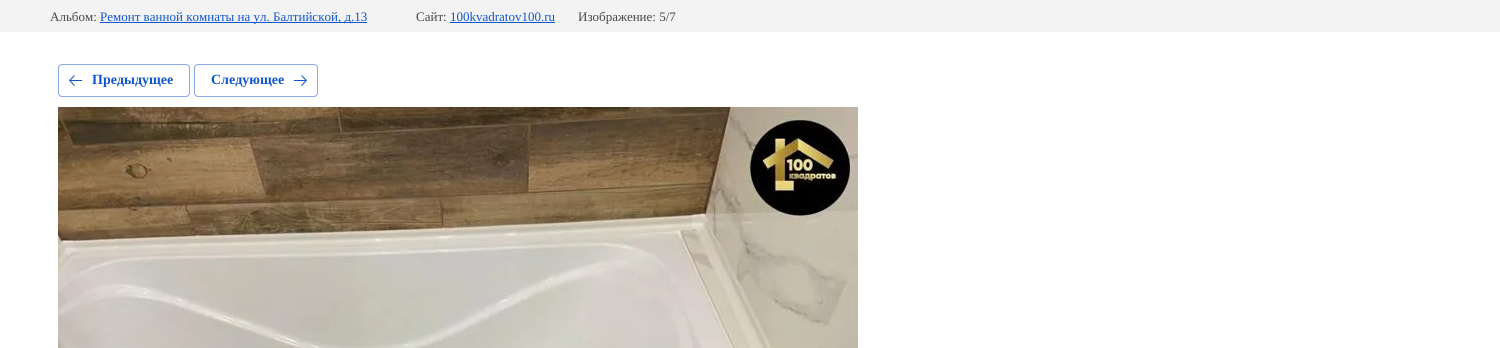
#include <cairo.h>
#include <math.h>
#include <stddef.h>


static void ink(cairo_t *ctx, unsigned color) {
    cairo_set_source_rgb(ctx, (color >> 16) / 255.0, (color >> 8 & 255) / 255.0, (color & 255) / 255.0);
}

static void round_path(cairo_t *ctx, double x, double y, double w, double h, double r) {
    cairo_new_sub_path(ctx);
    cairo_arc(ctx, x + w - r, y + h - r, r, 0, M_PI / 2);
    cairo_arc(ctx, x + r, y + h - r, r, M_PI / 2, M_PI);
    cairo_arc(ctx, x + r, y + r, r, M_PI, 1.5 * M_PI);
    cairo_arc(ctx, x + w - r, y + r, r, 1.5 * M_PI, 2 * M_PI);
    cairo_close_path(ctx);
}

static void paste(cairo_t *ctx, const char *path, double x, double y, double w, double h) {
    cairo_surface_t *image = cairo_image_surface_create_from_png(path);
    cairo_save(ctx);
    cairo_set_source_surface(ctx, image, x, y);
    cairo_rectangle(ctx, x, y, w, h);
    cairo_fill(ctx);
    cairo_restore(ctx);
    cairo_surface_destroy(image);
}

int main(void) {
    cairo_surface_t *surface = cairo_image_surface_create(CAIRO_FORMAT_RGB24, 1500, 348);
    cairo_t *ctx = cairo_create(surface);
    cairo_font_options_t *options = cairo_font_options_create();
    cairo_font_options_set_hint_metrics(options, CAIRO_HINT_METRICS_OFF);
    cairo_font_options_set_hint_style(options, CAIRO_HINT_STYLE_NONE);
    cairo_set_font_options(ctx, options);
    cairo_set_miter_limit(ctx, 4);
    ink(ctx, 0xFFFFFF);
    cairo_paint(ctx);
    ink(ctx, 0xF3F3F3);
    cairo_rectangle(ctx, 0, 0, 1500, 32);
    cairo_fill(ctx);
    cairo_select_font_face(ctx, "Liberation Serif", CAIRO_FONT_SLANT_NORMAL, CAIRO_FONT_WEIGHT_NORMAL);
    cairo_set_font_size(ctx, 13);
    ink(ctx, 0x484848);
    cairo_move_to(ctx, 50, 21);
    cairo_show_text(ctx, "Альбом:");
    ink(ctx, 0x1155CC);
    cairo_rectangle(ctx, 100, 22, 267, 1);
    cairo_fill(ctx);
    cairo_move_to(ctx, 100, 21);
    cairo_show_text(ctx, "Ремонт ванной комнаты на ул. Балтийской, д.13");
    ink(ctx, 0x484848);
    cairo_move_to(ctx, 416, 21);
    cairo_show_text(ctx, "Сайт:");
    ink(ctx, 0x1155CC);
    cairo_move_to(ctx, 450, 21);
    cairo_show_text(ctx, "100kvadratov100.ru");
    cairo_rectangle(ctx, 450, 22, 105, 1);
    cairo_fill(ctx);
    ink(ctx, 0x484848);
    cairo_move_to(ctx, 578, 21);
    cairo_show_text(ctx, "Изображение: 5/7");
    round_path(ctx, 58.5, 64.5, 131, 32, 3.5);
    ink(ctx, 0x88AAE6);
    cairo_set_line_width(ctx, 1);
    cairo_stroke(ctx);
    paste(ctx, "media/1.png", 69, 75, 13, 11);
    cairo_select_font_face(ctx, "Liberation Serif", CAIRO_FONT_SLANT_NORMAL, CAIRO_FONT_WEIGHT_BOLD);
    cairo_set_font_size(ctx, 14);
    ink(ctx, 0x1155CC);
    cairo_move_to(ctx, 92, 84);
    cairo_show_text(ctx, "Предыдущее");
    round_path(ctx, 194.5, 64.5, 123, 32, 3.5);
    ink(ctx, 0x88AAE6);
    cairo_stroke(ctx);
    ink(ctx, 0x1155CC);
    cairo_move_to(ctx, 211, 84);
    cairo_show_text(ctx, "Следующее");
    paste(ctx, "media/2.png", 294, 75, 13, 11);
    paste(ctx, "media/3.png", 58, 107, 800, 241);
    cairo_surface_write_to_png(surface, "image.png");
    cairo_font_options_destroy(options);
    cairo_destroy(ctx);
    cairo_surface_destroy(surface);
    return 0;
}
